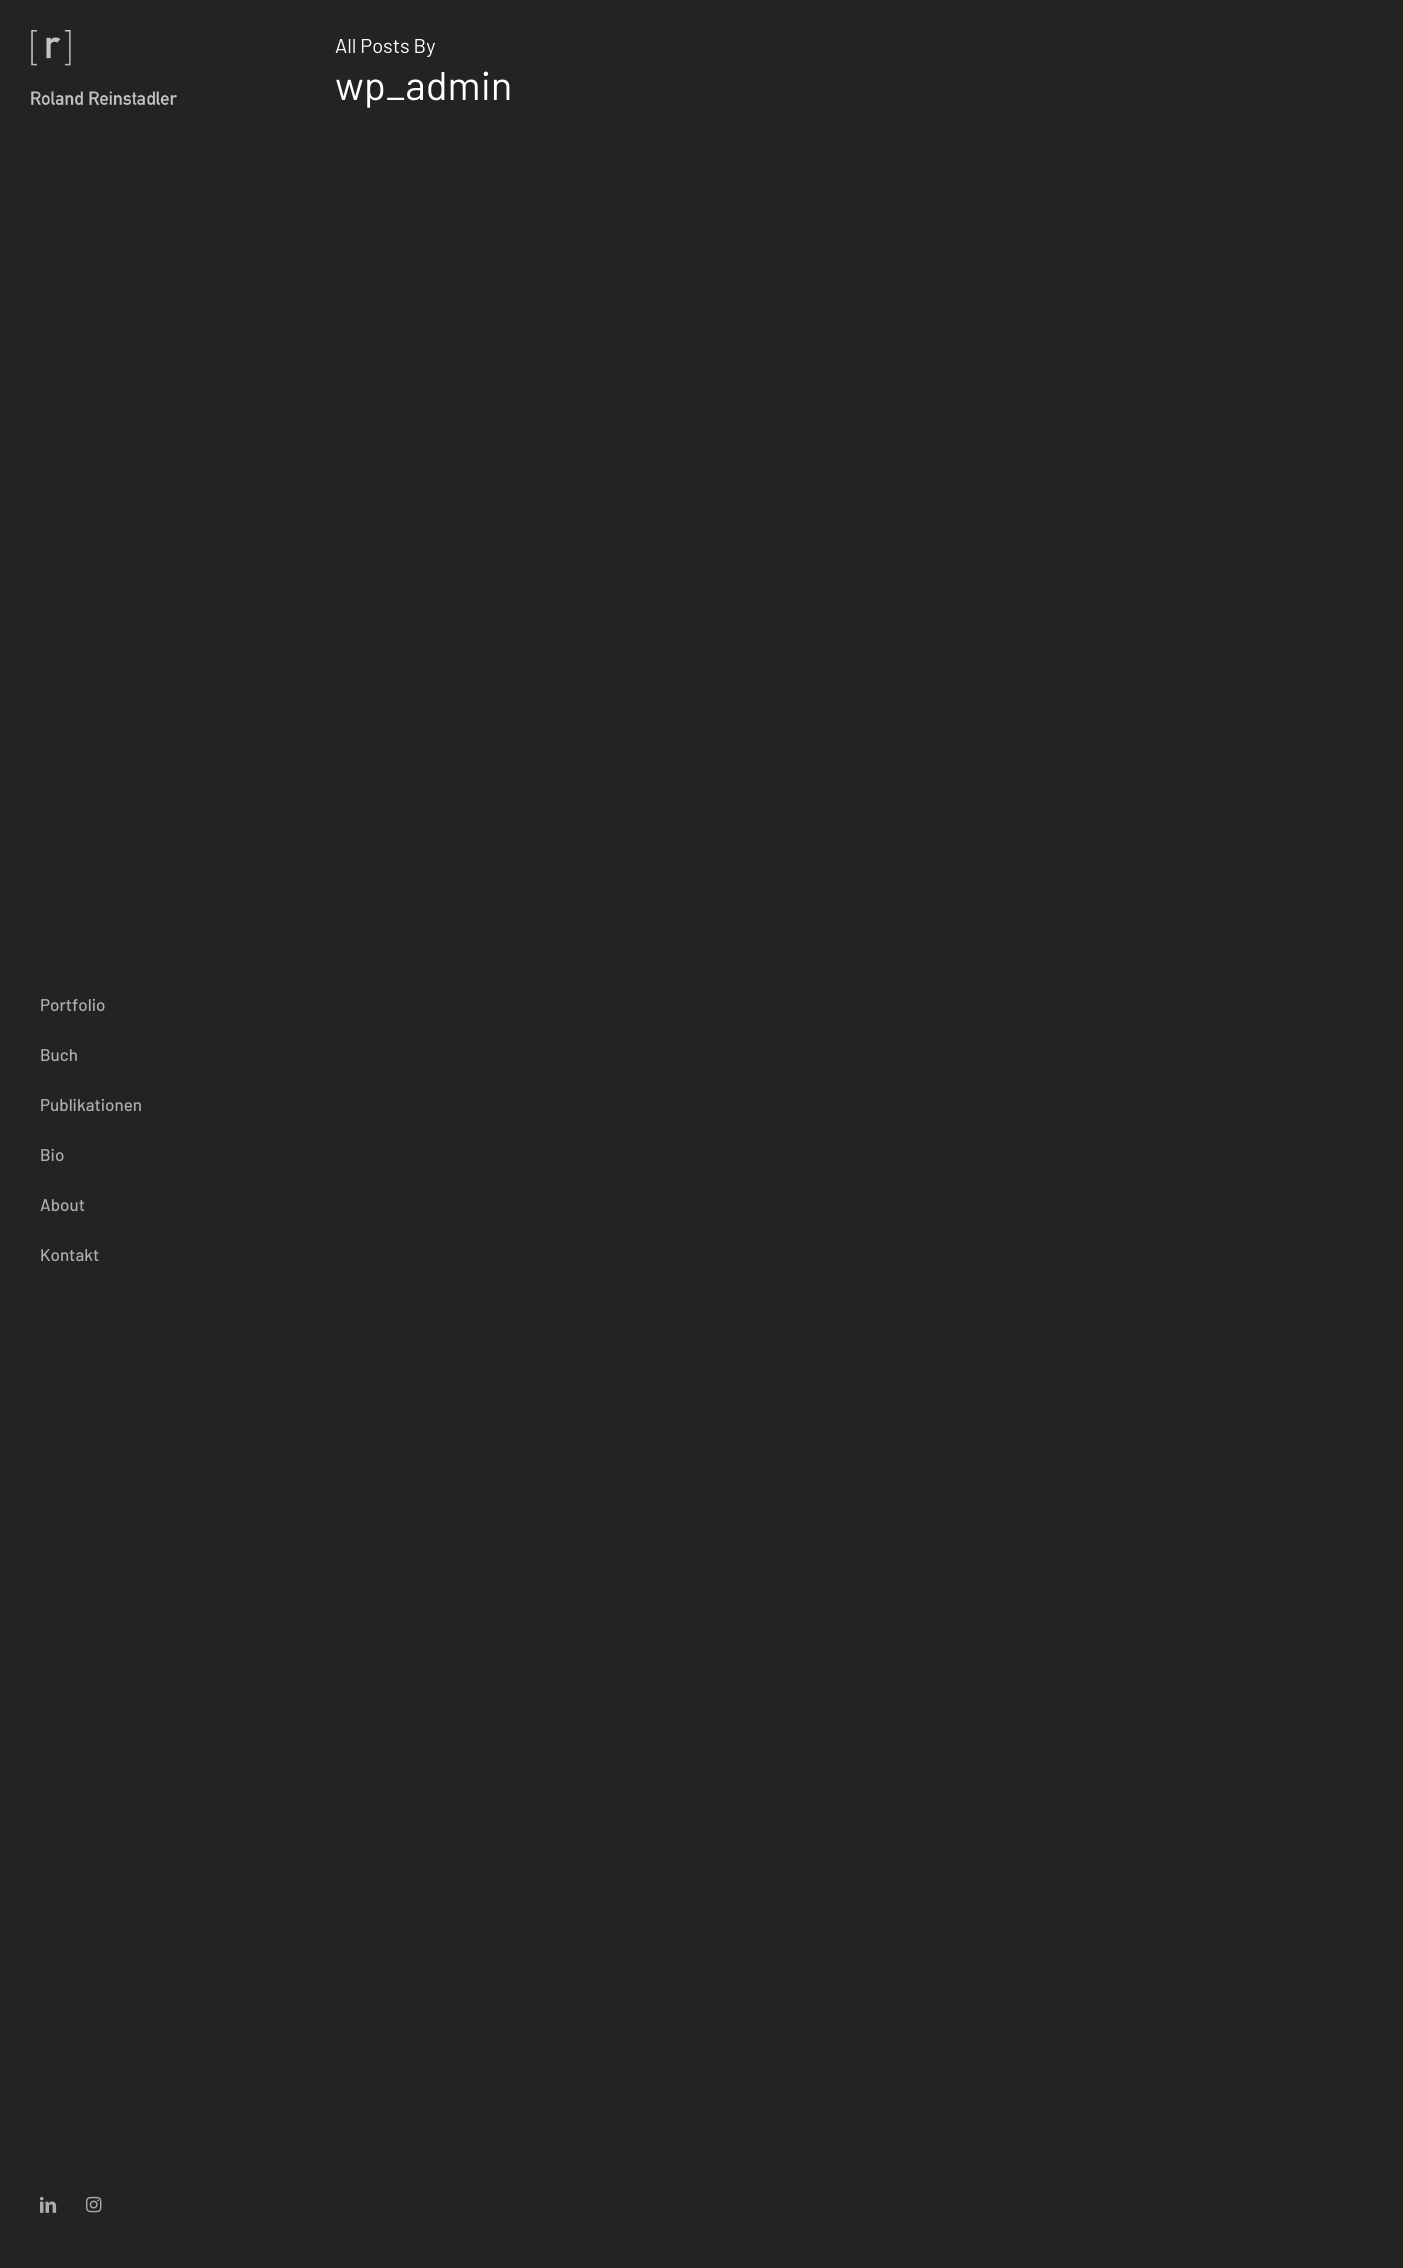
#include <cairo.h>
#include <math.h>
#include <stddef.h>

typedef struct { double x, y; const char *s; } line_t;

static void ink(cairo_t *ctx, unsigned color) {
    cairo_set_source_rgb(ctx, (color >> 16) / 255.0, (color >> 8 & 255) / 255.0, (color & 255) / 255.0);
}

static void paste(cairo_t *ctx, const char *path, double x, double y, double w, double h) {
    cairo_surface_t *image = cairo_image_surface_create_from_png(path);
    cairo_save(ctx);
    cairo_set_source_surface(ctx, image, x, y);
    cairo_rectangle(ctx, x, y, w, h);
    cairo_fill(ctx);
    cairo_restore(ctx);
    cairo_surface_destroy(image);
}

int main(void) {
    cairo_surface_t *surface = cairo_image_surface_create(CAIRO_FORMAT_RGB24, 1403, 2268);
    cairo_t *ctx = cairo_create(surface);
    cairo_font_options_t *options = cairo_font_options_create();
    cairo_font_options_set_hint_metrics(options, CAIRO_HINT_METRICS_OFF);
    cairo_font_options_set_hint_style(options, CAIRO_HINT_STYLE_NONE);
    cairo_set_font_options(ctx, options);
    cairo_set_miter_limit(ctx, 4);
    ink(ctx, 0x232323);
    cairo_paint(ctx);
    ink(ctx, 0x1E1E1E);
    cairo_rectangle(ctx, 335, 145, 1008, 1);
    cairo_fill(ctx);
    cairo_select_font_face(ctx, "Barlow", CAIRO_FONT_SLANT_NORMAL, CAIRO_FONT_WEIGHT_NORMAL);
    cairo_set_font_size(ctx, 20);
    ink(ctx, 0xFFFFFF);
    cairo_move_to(ctx, 335, 53);
    cairo_show_text(ctx, "All Posts By");
    cairo_set_font_size(ctx, 40);
    cairo_move_to(ctx, 335, 100);
    cairo_show_text(ctx, "wp_admin");
    paste(ctx, "media/1.png", 31, 30, 146, 76);
    cairo_select_font_face(ctx, "Barlow Medium", CAIRO_FONT_SLANT_NORMAL, CAIRO_FONT_WEIGHT_NORMAL);
    cairo_set_font_size(ctx, 17);
    ink(ctx, 0xADADAD);
    {
        static const line_t items[] = {
            {40, 1011, "Portfolio"},
            {40, 1061, "Buch"},
            {40, 1111, "Publikationen"},
            {40, 1161, "Bio"},
            {40, 1211, "About"},
            {40, 1261, "Kontakt"},
        };
        for (size_t i = 0; i < sizeof items / sizeof *items; i++) {
            cairo_move_to(ctx, items[i].x, items[i].y);
            cairo_show_text(ctx, items[i].s);
        }
    }
    paste(ctx, "media/2.png", 39, 2196, 18, 17);
    paste(ctx, "media/3.png", 86, 2196, 16, 17);
    cairo_surface_write_to_png(surface, "image.png");
    cairo_font_options_destroy(options);
    cairo_destroy(ctx);
    cairo_surface_destroy(surface);
    return 0;
}
